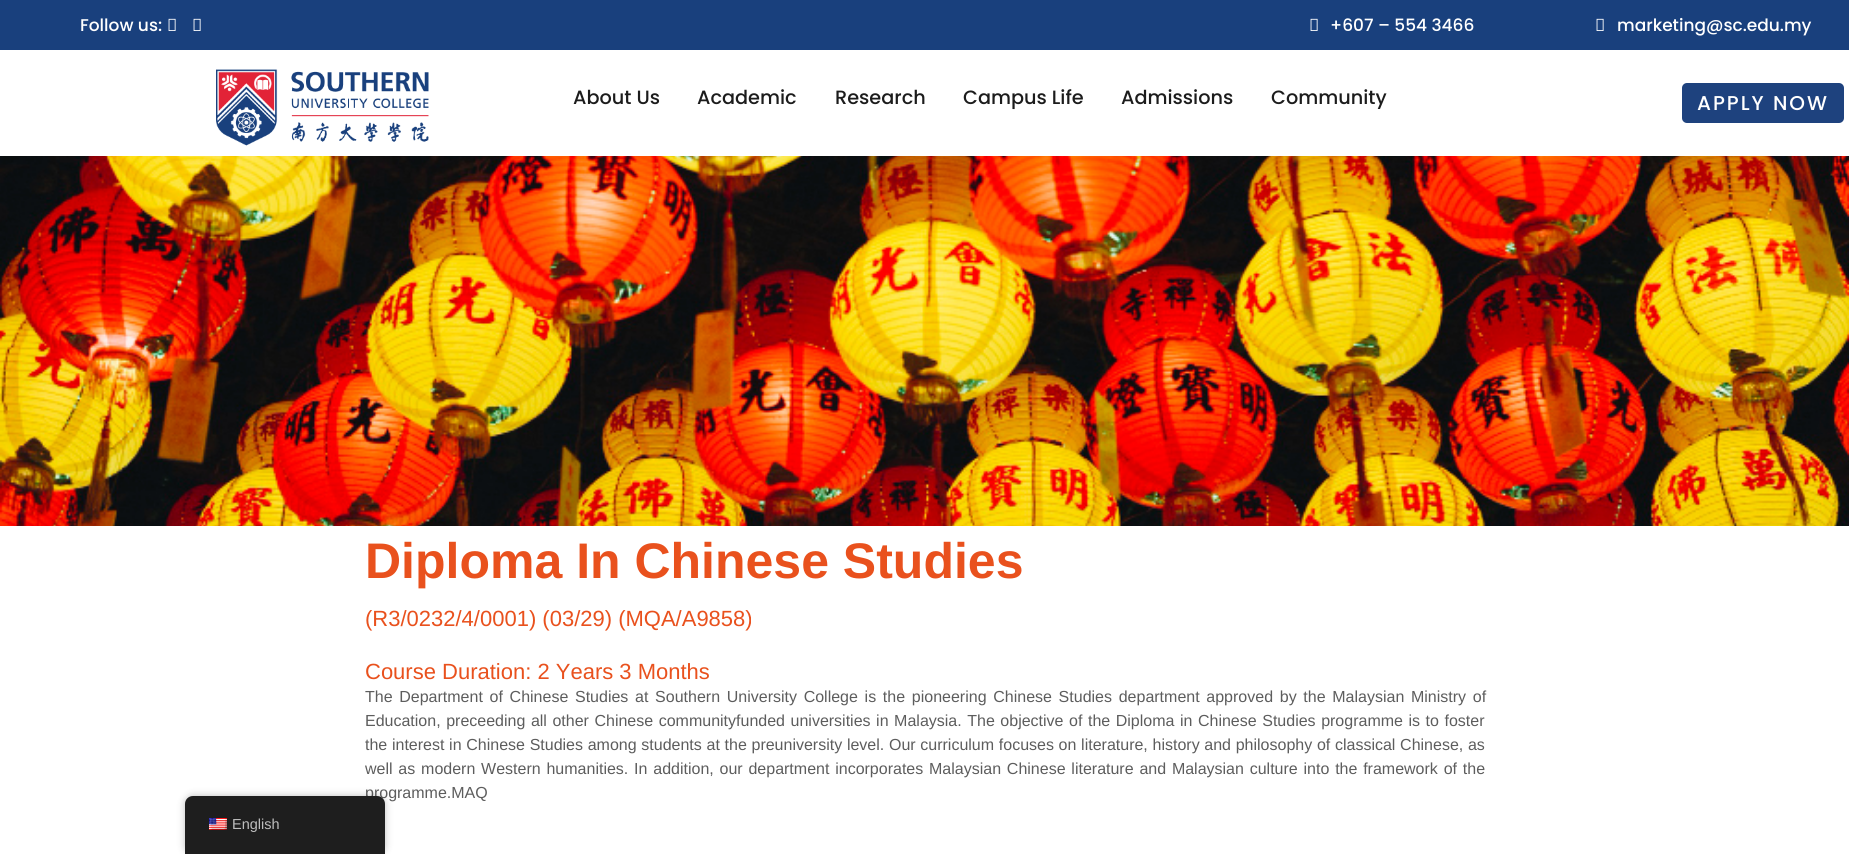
#include <cairo.h>
#include <math.h>
#include <stddef.h>

typedef struct { double x, y; const char *s; } line_t;

static void ink(cairo_t *ctx, unsigned color) {
    cairo_set_source_rgb(ctx, (color >> 16) / 255.0, (color >> 8 & 255) / 255.0, (color & 255) / 255.0);
}

static void write_spaced(cairo_t *ctx, double x, double y, const char *s, double letter, double word) {
    cairo_move_to(ctx, x, y);
    while (*s) {
        char ch[5] = {0};
        int n = 0;
        do ch[n++] = *s++; while ((*s & 0xC0) == 0x80);
        cairo_show_text(ctx, ch);
        cairo_rel_move_to(ctx, letter + word * (*ch == ' '), 0);
    }
}

static void round_path(cairo_t *ctx, double x, double y, double w, double h, double r) {
    cairo_new_sub_path(ctx);
    cairo_arc(ctx, x + w - r, y + h - r, r, 0, M_PI / 2);
    cairo_arc(ctx, x + r, y + h - r, r, M_PI / 2, M_PI);
    cairo_arc(ctx, x + r, y + r, r, M_PI, 1.5 * M_PI);
    cairo_arc(ctx, x + w - r, y + r, r, 1.5 * M_PI, 2 * M_PI);
    cairo_close_path(ctx);
}

static void blur_box(cairo_t *ctx, double x, double y, double w, double h, double r, double blur, double alpha) {
    cairo_push_group_with_content(ctx, CAIRO_CONTENT_ALPHA);
    cairo_set_operator(ctx, CAIRO_OPERATOR_SOURCE);
    for (int i = 15; i >= -15 && fmin(w, h) + blur * i / 3 > 0; i -= 2) {
        double e = blur * i / 6;
        cairo_set_source_rgba(ctx, 0, 0, 0, alpha * erfc((i - 1) / 8.5) / 2);
        round_path(ctx, x - e, y - e, w + 2 * e, h + 2 * e, fmax(0, fmin(r + e + blur * .6, fmin(w, h) / 2 + e)));
        cairo_fill(ctx);
    }
    cairo_pattern_t *soft = cairo_pop_group(ctx);
    cairo_mask(ctx, soft);
    cairo_pattern_destroy(soft);
}

static void paste(cairo_t *ctx, const char *path, double x, double y, double w, double h) {
    cairo_surface_t *image = cairo_image_surface_create_from_png(path);
    cairo_save(ctx);
    cairo_set_source_surface(ctx, image, x, y);
    cairo_rectangle(ctx, x, y, w, h);
    cairo_fill(ctx);
    cairo_restore(ctx);
    cairo_surface_destroy(image);
}

int main(void) {
    cairo_surface_t *surface = cairo_image_surface_create(CAIRO_FORMAT_RGB24, 1849, 854);
    cairo_t *ctx = cairo_create(surface);
    cairo_font_options_t *options = cairo_font_options_create();
    cairo_font_options_set_hint_metrics(options, CAIRO_HINT_METRICS_OFF);
    cairo_font_options_set_hint_style(options, CAIRO_HINT_STYLE_NONE);
    cairo_set_font_options(ctx, options);
    cairo_set_miter_limit(ctx, 4);
    ink(ctx, 0xFFFFFF);
    cairo_paint(ctx);
    ink(ctx, 0x19407D);
    cairo_rectangle(ctx, 0, 0, 1849, 50);
    cairo_fill(ctx);
    cairo_select_font_face(ctx, "Poppins Medium", CAIRO_FONT_SLANT_NORMAL, CAIRO_FONT_WEIGHT_NORMAL);
    cairo_set_font_size(ctx, 17);
    ink(ctx, 0xFFFFFF);
    cairo_move_to(ctx, 80, 31);
    cairo_show_text(ctx, "Follow us:");
    paste(ctx, "media/1.png", 168, 18, 8, 13);
    paste(ctx, "media/1.png", 193, 18, 8, 13);
    paste(ctx, "media/1.png", 1310, 18, 8, 13);
    cairo_move_to(ctx, 1330, 31);
    cairo_show_text(ctx, "+607 – 554 3466");
    paste(ctx, "media/1.png", 1596, 18, 8, 13);
    cairo_move_to(ctx, 1617, 31);
    cairo_show_text(ctx, "marketing@sc.edu.my");
    paste(ctx, "media/2.png", 216, 69, 213, 77);
    cairo_set_font_size(ctx, 19.25);
    ink(ctx, 0x1C1C1C);
    {
        static const line_t items[] = {
            {573, 104, "About Us"},
            {697, 104, "Academic"},
            {835, 104, "Research"},
            {963, 104, "Campus Life"},
            {1121, 104, "Admissions"},
            {1271, 104, "Community"},
        };
        for (size_t i = 0; i < sizeof items / sizeof *items; i++) {
            cairo_move_to(ctx, items[i].x, items[i].y);
            cairo_show_text(ctx, items[i].s);
        }
    }
    ink(ctx, 0x1E427E);
    round_path(ctx, 1682, 83, 162, 40, 5);
    cairo_fill(ctx);
    cairo_set_font_size(ctx, 20);
    ink(ctx, 0xFFFFFF);
    write_spaced(ctx, 1697, 110, "APPLY NOW", 2, 0);
    paste(ctx, "media/3.png", 0, 156, 1849, 370);
    cairo_select_font_face(ctx, "Liberation Sans", CAIRO_FONT_SLANT_NORMAL, CAIRO_FONT_WEIGHT_BOLD);
    cairo_set_font_size(ctx, 50);
    ink(ctx, 0xE9511D);
    cairo_move_to(ctx, 365, 578);
    cairo_show_text(ctx, "Diploma In Chinese Studies");
    cairo_select_font_face(ctx, "Liberation Sans", CAIRO_FONT_SLANT_NORMAL, CAIRO_FONT_WEIGHT_NORMAL);
    cairo_set_font_size(ctx, 22);
    cairo_move_to(ctx, 365, 626);
    cairo_show_text(ctx, "(R3/0232/4/0001) (03/29) (MQA/A9858)");
    cairo_move_to(ctx, 365, 679);
    cairo_show_text(ctx, "Course Duration: 2 Years 3 Months");
    cairo_set_font_size(ctx, 16);
    ink(ctx, 0x5D5D5D);
    write_spaced(ctx, 365, 702, "The Department of Chinese Studies at Southern University College is the pioneering Chinese Studies department approved by the Malaysian Ministry of", 0, 2.25);
    write_spaced(ctx, 365, 726, "Education, preceeding all other Chinese communityfunded universities in Malaysia. The objective of the Diploma in Chinese Studies programme is to foster", 0, 1.1);
    write_spaced(ctx, 365, 750, "the interest in Chinese Studies among students at the preuniversity level. Our curriculum focuses on literature, history and philosophy of classical Chinese, as", 0, 0.25);
    write_spaced(ctx, 365, 774, "well as modern Western humanities. In addition, our department incorporates Malaysian Chinese literature and Malaysian culture into the framework of the", 0, 1.35);
    cairo_move_to(ctx, 365, 798);
    cairo_show_text(ctx, "programme.MAQ");
    ink(ctx, 0x000000);
    blur_box(ctx, 185, 796, 200, 58, 8, 4, 0.25);
    ink(ctx, 0x1E1E1E);
    cairo_new_path(ctx);
    cairo_move_to(ctx, 193, 796);
    cairo_line_to(ctx, 377, 796);
    cairo_curve_to(ctx, 381.5, 796, 385, 799.5, 385, 804);
    cairo_line_to(ctx, 385, 854);
    cairo_line_to(ctx, 185, 854);
    cairo_line_to(ctx, 185, 804);
    cairo_curve_to(ctx, 185, 799.5, 188.5, 796, 193, 796);
    cairo_close_path(ctx);
    cairo_fill(ctx);
    paste(ctx, "media/4.png", 209, 818, 18, 12);
    cairo_set_font_size(ctx, 14.5);
    ink(ctx, 0xBDBDBD);
    cairo_move_to(ctx, 232, 829);
    cairo_show_text(ctx, "English");
    cairo_surface_write_to_png(surface, "image.png");
    cairo_font_options_destroy(options);
    cairo_destroy(ctx);
    cairo_surface_destroy(surface);
    return 0;
}
